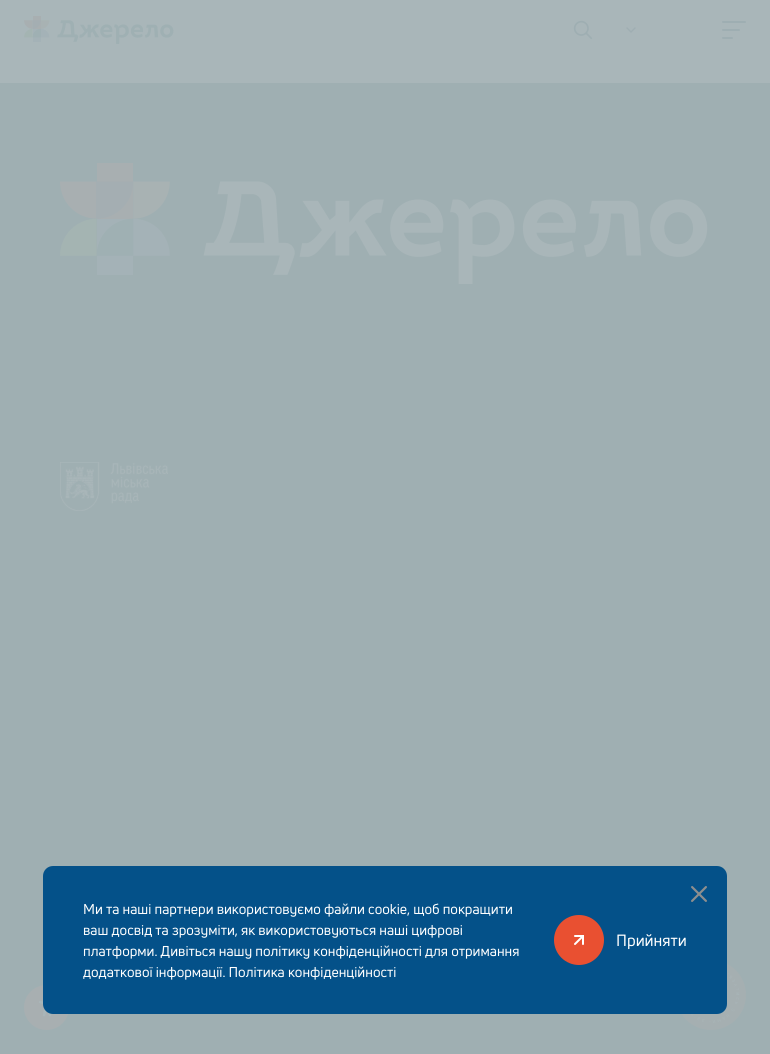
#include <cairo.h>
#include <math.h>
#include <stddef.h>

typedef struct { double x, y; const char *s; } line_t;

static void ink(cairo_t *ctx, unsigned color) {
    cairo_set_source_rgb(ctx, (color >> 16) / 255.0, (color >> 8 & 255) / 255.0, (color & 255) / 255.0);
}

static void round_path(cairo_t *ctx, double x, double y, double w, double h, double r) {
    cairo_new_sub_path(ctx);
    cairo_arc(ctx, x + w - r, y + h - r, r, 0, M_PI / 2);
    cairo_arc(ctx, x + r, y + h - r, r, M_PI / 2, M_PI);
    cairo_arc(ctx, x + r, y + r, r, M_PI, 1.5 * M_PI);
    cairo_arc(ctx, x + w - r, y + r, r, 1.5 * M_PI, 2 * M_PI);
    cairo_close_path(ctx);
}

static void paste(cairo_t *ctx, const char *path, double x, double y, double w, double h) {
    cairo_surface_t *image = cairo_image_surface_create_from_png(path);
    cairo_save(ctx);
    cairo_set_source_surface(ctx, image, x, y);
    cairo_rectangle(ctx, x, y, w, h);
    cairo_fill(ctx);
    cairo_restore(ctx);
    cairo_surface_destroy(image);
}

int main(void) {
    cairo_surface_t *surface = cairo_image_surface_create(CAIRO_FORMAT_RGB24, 770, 1054);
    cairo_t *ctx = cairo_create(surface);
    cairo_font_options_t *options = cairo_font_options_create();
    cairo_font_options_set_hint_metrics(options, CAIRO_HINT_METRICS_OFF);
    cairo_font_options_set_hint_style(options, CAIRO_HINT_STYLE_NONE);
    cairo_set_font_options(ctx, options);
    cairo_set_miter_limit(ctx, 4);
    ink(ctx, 0xA9B6B9);
    cairo_paint(ctx);
    paste(ctx, "media/1.png", 24, 16, 150, 28);
    paste(ctx, "media/2.png", 573, 20, 20, 20);
    cairo_new_path(ctx);
    cairo_move_to(ctx, 627, 28);
    cairo_line_to(ctx, 631, 32);
    cairo_line_to(ctx, 635, 28);
    ink(ctx, 0x9FAEB2);
    cairo_set_line_width(ctx, 1.4);
    cairo_set_line_cap(ctx, CAIRO_LINE_CAP_ROUND);
    cairo_stroke(ctx);
    paste(ctx, "media/3.png", 722, 21, 24, 18);
    ink(ctx, 0x9FAFB2);
    cairo_rectangle(ctx, 0, 83, 770, 971);
    cairo_fill(ctx);
    paste(ctx, "media/4.png", 60, 163, 648, 121);
    paste(ctx, "media/5.png", 60, 462, 108, 49);
    ink(ctx, 0xA8AFB1);
    cairo_arc(ctx, 46.5, 1007.5, 22.5, 0, 2 * M_PI);
    cairo_fill(ctx);
    paste(ctx, "media/8.png", 38, 1000, 14, 17);
    ink(ctx, 0xA5AFB1);
    cairo_arc(ctx, 711, 995, 35, 0, 2 * M_PI);
    cairo_fill(ctx);
    paste(ctx, "media/9.png", 691, 973, 49, 50);
    ink(ctx, 0x045189);
    round_path(ctx, 43, 866, 684, 148, 10);
    cairo_fill(ctx);
    paste(ctx, "media/6.png", 691, 886, 16, 16);
    cairo_select_font_face(ctx, "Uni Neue", CAIRO_FONT_SLANT_NORMAL, CAIRO_FONT_WEIGHT_NORMAL);
    cairo_set_font_size(ctx, 14);
    ink(ctx, 0xFFFFFF);
    {
        static const line_t items[] = {
            {83, 914, "Ми та наші партнери використовуємо файли cookie, щоб покращити"},
            {83, 935, "ваш досвід та зрозуміти, як використовуються наші цифрові"},
            {83, 956, "платформи. Дивіться нашу політику конфіденційності для отримання"},
            {83, 977, "додаткової інформації. Політика конфіденційності"},
        };
        for (size_t i = 0; i < sizeof items / sizeof *items; i++) {
            cairo_move_to(ctx, items[i].x, items[i].y);
            cairo_show_text(ctx, items[i].s);
        }
    }
    ink(ctx, 0xE95031);
    cairo_new_path(ctx);
    cairo_arc(ctx, 579, 940, 25, 0, 2 * M_PI);
    cairo_fill(ctx);
    paste(ctx, "media/7.png", 574, 935, 10, 10);
    cairo_set_font_size(ctx, 16);
    ink(ctx, 0xFFFFFF);
    cairo_move_to(ctx, 616, 946);
    cairo_show_text(ctx, "Прийняти");
    cairo_surface_write_to_png(surface, "image.png");
    cairo_font_options_destroy(options);
    cairo_destroy(ctx);
    cairo_surface_destroy(surface);
    return 0;
}
